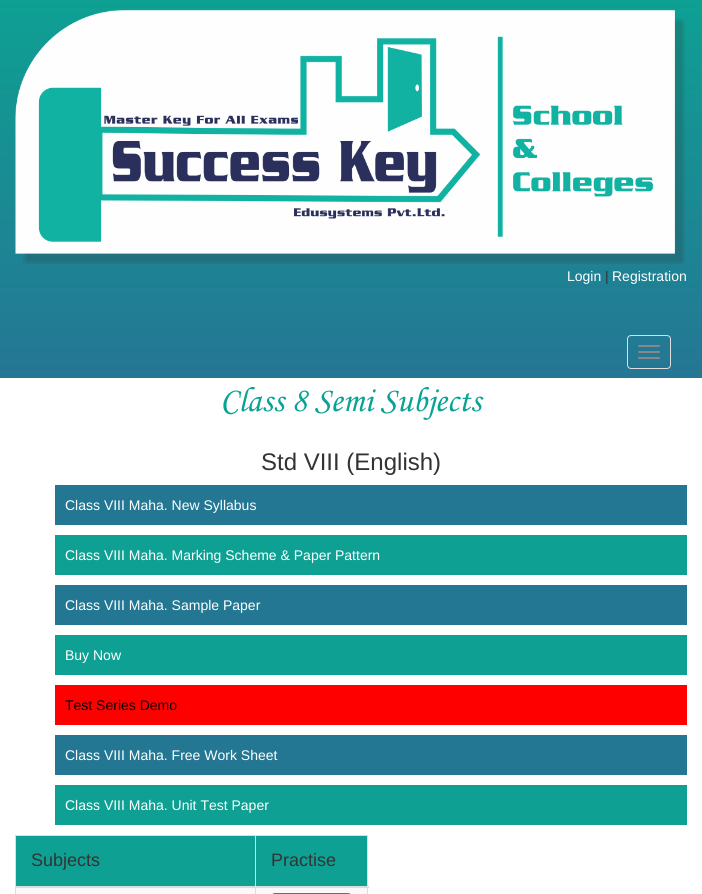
#include <cairo.h>
#include <math.h>
#include <stddef.h>

typedef struct { double x, y, w, h; unsigned color; } box_t;

static void ink(cairo_t *ctx, unsigned color) {
    cairo_set_source_rgb(ctx, (color >> 16) / 255.0, (color >> 8 & 255) / 255.0, (color & 255) / 255.0);
}

static void round_path(cairo_t *ctx, double x, double y, double w, double h, double r) {
    cairo_new_sub_path(ctx);
    cairo_arc(ctx, x + w - r, y + h - r, r, 0, M_PI / 2);
    cairo_arc(ctx, x + r, y + h - r, r, M_PI / 2, M_PI);
    cairo_arc(ctx, x + r, y + r, r, M_PI, 1.5 * M_PI);
    cairo_arc(ctx, x + w - r, y + r, r, 1.5 * M_PI, 2 * M_PI);
    cairo_close_path(ctx);
}

static void paste(cairo_t *ctx, const char *path, double x, double y, double w, double h) {
    cairo_surface_t *image = cairo_image_surface_create_from_png(path);
    cairo_save(ctx);
    cairo_set_source_surface(ctx, image, x, y);
    cairo_rectangle(ctx, x, y, w, h);
    cairo_fill(ctx);
    cairo_restore(ctx);
    cairo_surface_destroy(image);
}

int main(void) {
    cairo_surface_t *surface = cairo_image_surface_create(CAIRO_FORMAT_RGB24, 702, 894);
    cairo_t *ctx = cairo_create(surface);
    cairo_font_options_t *options = cairo_font_options_create();
    cairo_font_options_set_hint_metrics(options, CAIRO_HINT_METRICS_OFF);
    cairo_font_options_set_hint_style(options, CAIRO_HINT_STYLE_NONE);
    cairo_set_font_options(ctx, options);
    cairo_set_miter_limit(ctx, 4);
    cairo_pattern_t *gradient;
    ink(ctx, 0xFFFFFF);
    cairo_paint(ctx);
    gradient = cairo_pattern_create_linear(351, 0, 351, 378);
    cairo_pattern_add_color_stop_rgba(gradient, 0, 0.055, 0.627, 0.576, 1);
    cairo_pattern_add_color_stop_rgba(gradient, 1, 0.145, 0.463, 0.58, 1);
    cairo_set_source(ctx, gradient);
    cairo_pattern_destroy(gradient);
    cairo_rectangle(ctx, 0, 0, 702, 378);
    cairo_fill(ctx);
    paste(ctx, "media/1.png", 15, 10, 670, 255);
    cairo_select_font_face(ctx, "Liberation Sans", CAIRO_FONT_SLANT_NORMAL, CAIRO_FONT_WEIGHT_NORMAL);
    cairo_set_font_size(ctx, 14);
    ink(ctx, 0xFFFFFF);
    cairo_move_to(ctx, 567, 281);
    cairo_show_text(ctx, "Login");
    ink(ctx, 0x333333);
    cairo_move_to(ctx, 605, 281);
    cairo_show_text(ctx, "|");
    ink(ctx, 0xFFFFFF);
    cairo_move_to(ctx, 612, 281);
    cairo_show_text(ctx, "Registration");
    round_path(ctx, 627.5, 335.5, 43, 33, 3.5);
    ink(ctx, 0xDDDDDD);
    cairo_set_line_width(ctx, 1);
    cairo_stroke(ctx);
    ink(ctx, 0x888888);
    round_path(ctx, 638, 345, 22, 2, 1);
    cairo_fill(ctx);
    round_path(ctx, 638, 351, 22, 2, 1);
    cairo_fill(ctx);
    round_path(ctx, 638, 357, 22, 2, 1);
    cairo_fill(ctx);
    cairo_select_font_face(ctx, "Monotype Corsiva", CAIRO_FONT_SLANT_ITALIC, CAIRO_FONT_WEIGHT_NORMAL);
    cairo_set_font_size(ctx, 35);
    ink(ctx, 0x0AA295);
    cairo_move_to(ctx, 220, 411);
    cairo_show_text(ctx, "Class 8 Semi Subjects");
    cairo_select_font_face(ctx, "Liberation Sans", CAIRO_FONT_SLANT_NORMAL, CAIRO_FONT_WEIGHT_NORMAL);
    cairo_set_font_size(ctx, 24);
    ink(ctx, 0x333333);
    cairo_move_to(ctx, 261, 470);
    cairo_show_text(ctx, "Std VIII (English)");
    ink(ctx, 0x237793);
    cairo_rectangle(ctx, 55, 485, 632, 40);
    cairo_fill(ctx);
    cairo_set_font_size(ctx, 14);
    ink(ctx, 0xFFFFFF);
    cairo_move_to(ctx, 65, 510);
    cairo_show_text(ctx, "Class VIII Maha. New Syllabus");
    ink(ctx, 0x0EA093);
    cairo_rectangle(ctx, 55, 535, 632, 40);
    cairo_fill(ctx);
    ink(ctx, 0xFFFFFF);
    cairo_move_to(ctx, 65, 560);
    cairo_show_text(ctx, "Class VIII Maha. Marking Scheme & Paper Pattern");
    ink(ctx, 0x237793);
    cairo_rectangle(ctx, 55, 585, 632, 40);
    cairo_fill(ctx);
    ink(ctx, 0xFFFFFF);
    cairo_move_to(ctx, 65, 610);
    cairo_show_text(ctx, "Class VIII Maha. Sample Paper");
    ink(ctx, 0x0EA093);
    cairo_rectangle(ctx, 55, 635, 632, 40);
    cairo_fill(ctx);
    ink(ctx, 0xFFFFFF);
    cairo_move_to(ctx, 65, 660);
    cairo_show_text(ctx, "Buy Now");
    ink(ctx, 0xFF0000);
    cairo_rectangle(ctx, 55, 685, 632, 40);
    cairo_fill(ctx);
    ink(ctx, 0x000000);
    cairo_move_to(ctx, 65, 710);
    cairo_show_text(ctx, "Test Series Demo");
    ink(ctx, 0x237793);
    cairo_rectangle(ctx, 55, 735, 632, 40);
    cairo_fill(ctx);
    ink(ctx, 0xFFFFFF);
    cairo_move_to(ctx, 65, 760);
    cairo_show_text(ctx, "Class VIII Maha. Free Work Sheet");
    ink(ctx, 0x0EA093);
    cairo_rectangle(ctx, 55, 785, 632, 40);
    cairo_fill(ctx);
    ink(ctx, 0xFFFFFF);
    cairo_move_to(ctx, 65, 810);
    cairo_show_text(ctx, "Class VIII Maha. Unit Test Paper");
    {
        static const box_t items[] = {
            {15, 835, 353, 1, 0xDDDDDD},
            {16, 888, 352, 6, 0xF9F9F9},
            {367, 835, 1, 59, 0xDDDDDD},
            {15, 835, 1, 59, 0xDDDDDD},
            {16, 836, 351, 50, 0x0EA093},
            {255, 835, 1, 59, 0xDDDDDD},
        };
        for (size_t i = 0; i < sizeof items / sizeof *items; i++) {
            ink(ctx, items[i].color);
            cairo_rectangle(ctx, items[i].x, items[i].y, items[i].w, items[i].h);
            cairo_fill(ctx);
        }
    }
    round_path(ctx, 271.5, 893.5, 80, 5, 3.5);
    ink(ctx, 0xD43F3A);
    cairo_stroke(ctx);
    cairo_set_font_size(ctx, 18);
    ink(ctx, 0x333333);
    cairo_move_to(ctx, 31, 866);
    cairo_show_text(ctx, "Subjects");
    ink(ctx, 0xDDDDDD);
    cairo_rectangle(ctx, 15, 886, 354, 2);
    cairo_fill(ctx);
    ink(ctx, 0x333333);
    cairo_move_to(ctx, 271, 866);
    cairo_show_text(ctx, "Practise");
    cairo_surface_write_to_png(surface, "image.png");
    cairo_font_options_destroy(options);
    cairo_destroy(ctx);
    cairo_surface_destroy(surface);
    return 0;
}
